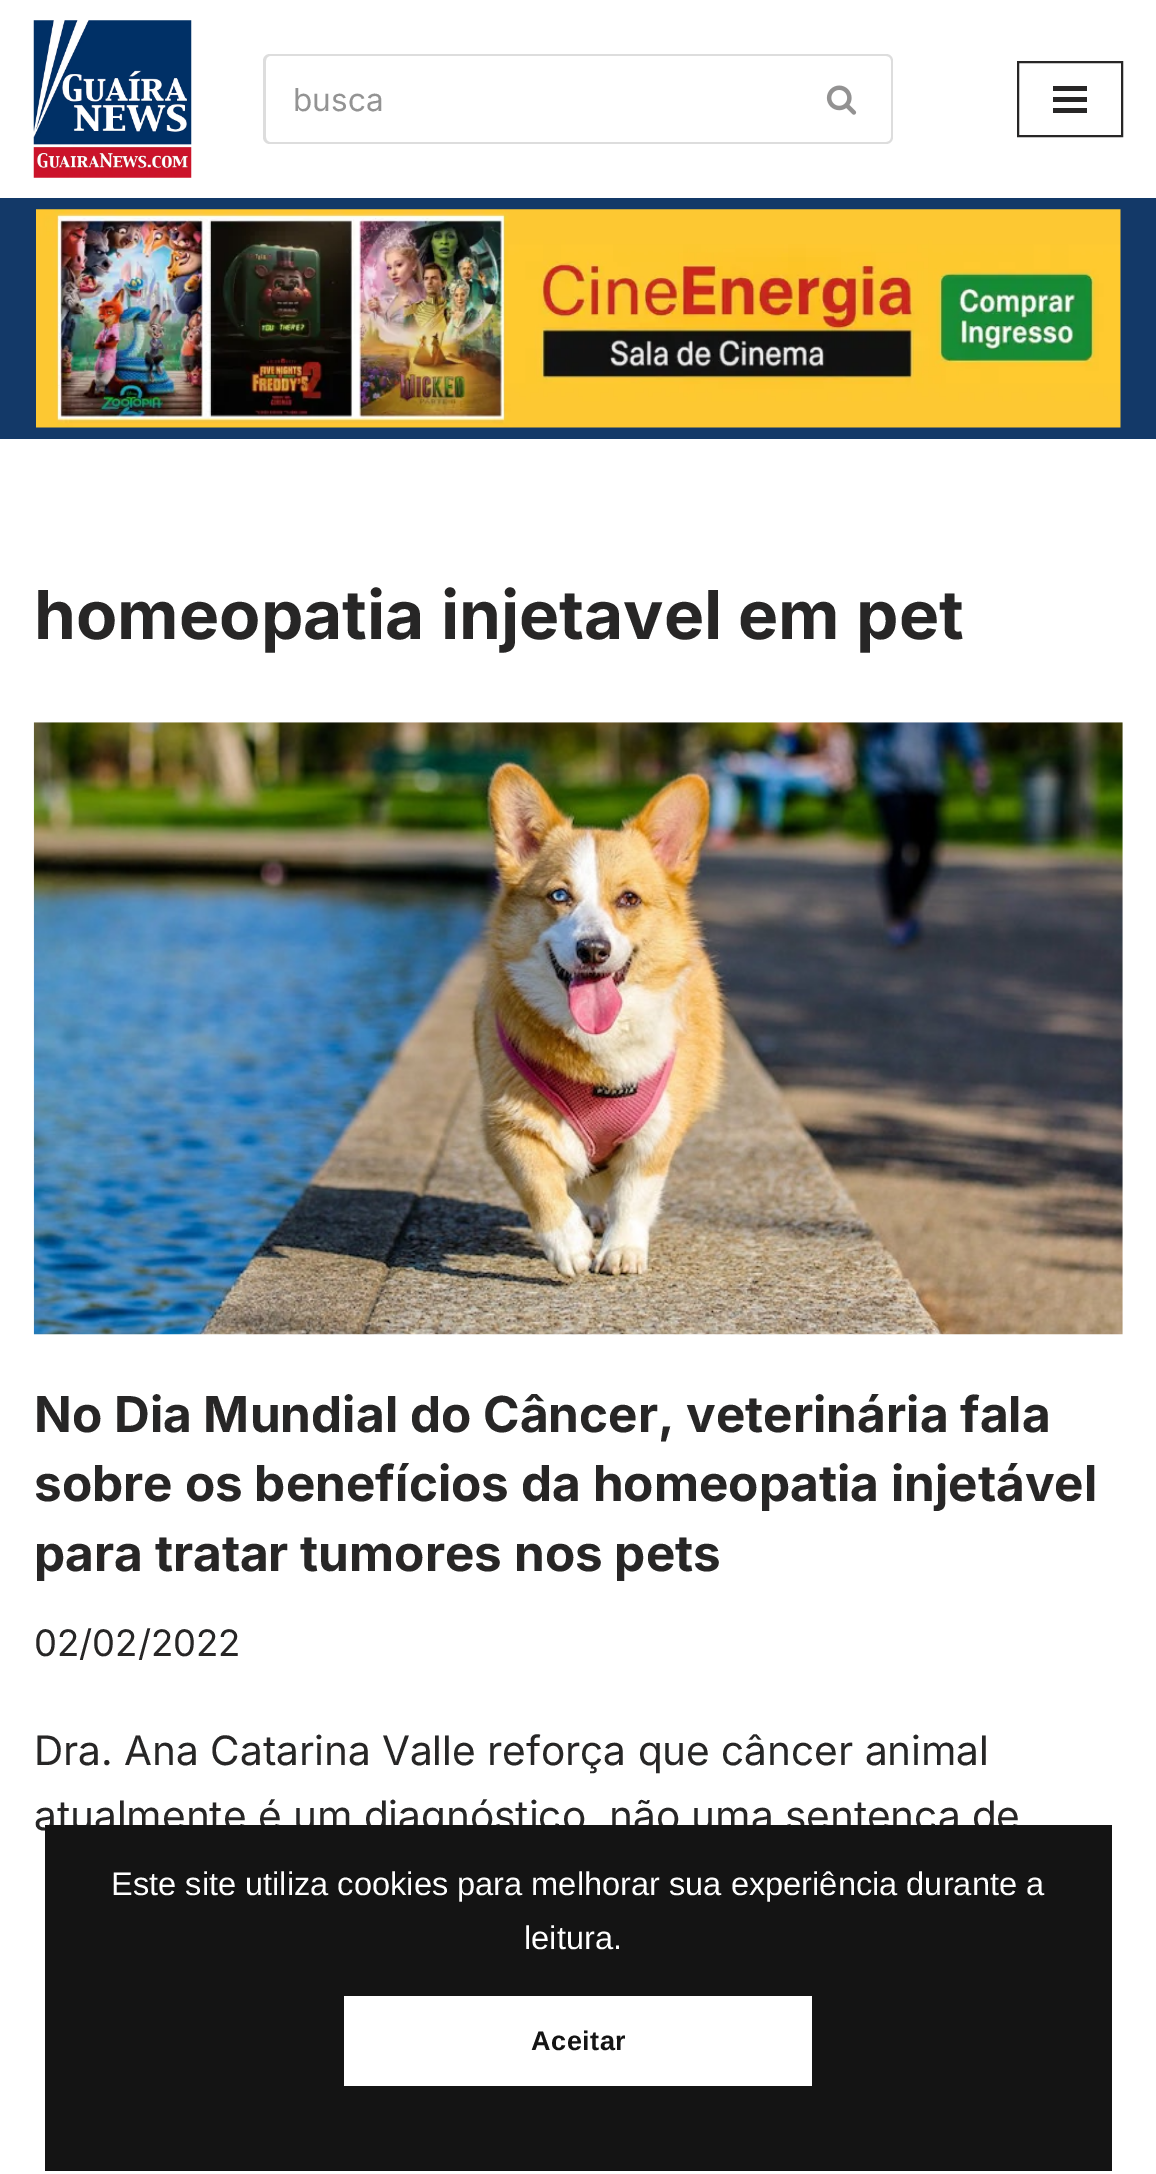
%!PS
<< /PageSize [1156 2174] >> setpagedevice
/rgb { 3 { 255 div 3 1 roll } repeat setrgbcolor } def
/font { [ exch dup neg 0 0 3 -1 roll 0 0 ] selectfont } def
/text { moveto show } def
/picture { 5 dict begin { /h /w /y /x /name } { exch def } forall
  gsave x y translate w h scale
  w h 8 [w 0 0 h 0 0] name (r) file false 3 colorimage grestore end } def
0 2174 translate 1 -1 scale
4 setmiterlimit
255 255 255 rgb
0 0 1156 2174 rectfill
(img_01.rgb) 33 20 159 158 picture
221 221 221 rgb
270 54 moveto 522 0 rlineto 0 90 rlineto -522 0 rlineto -4 0 -7 -3 -7 -7 rcurveto 0 -76 rlineto 0 -4 3 -7 7 -7 rcurveto closepath 270 56 moveto 522 0 rlineto 0 86 rlineto -522 0 rlineto -2 0 -4 -2 -4 -5 rcurveto 0 -76 rlineto 0 -3 2 -5 4 -5 rcurveto closepath eofill
792 54 moveto 94 0 rlineto 4 0 7 3 7 7 rcurveto 0 76 rlineto 0 4 -3 7 -7 7 rcurveto -94 0 rlineto closepath 792 56 moveto 94 0 rlineto 3 0 5 2 5 5 rcurveto 0 76 rlineto 0 3 -2 5 -5 5 rcurveto -94 0 rlineto closepath eofill
(img_02.rgb) 826 85 31 30 picture
39 38 38 rgb
2 setlinewidth
1018 62 104 74 rectstroke
1053 86 34 5 rectfill
1053 97 34 5 rectfill
1053 108 34 5 rectfill
19 57 104 rgb
0 198 1156 241 rectfill
(img_03.rgb) 36 209 1085 219 picture
(img_04.rgb) 33 722 1090 613 picture
/Inter-Regular 31.5 font
147 147 147 rgb
(busca) 293 111 text
/Inter-Bold 67.5 font
39 38 38 rgb
(homeopatia injetavel em pet) 34 639 text
/Inter-Bold 49.5 font
(No Dia Mundial do Câncer, veterinária fala) 34 1432 text
(sobre os benefícios da homeopatia injetável) 34 1501 text
(para tratar tumores nos pets) 34 1571 text
/Inter-Regular 36.5 font
(02/02/2022) 34 1656 text
/Inter-Regular 40.5 font
(Dra. Ana Catarina Valle reforça que câncer animal) 34 1765 text
(atualmente é um diagnóstico, não uma sentença de) 34 1830 text
20 20 20 rgb
45 1825 1067 346 rectfill
/LiberationSans-Regular 32.6 font
255 255 255 rgb
(Este site utiliza cookies para melhorar sua experiência durante a) 111 1895 text
(leitura.) 524 1949 text
344 1996 468 90 rectfill
/LiberationSans-Bold 27 font
20 20 20 rgb
531 2050 moveto 0.5 0 (Aceitar) ashow
showpage
